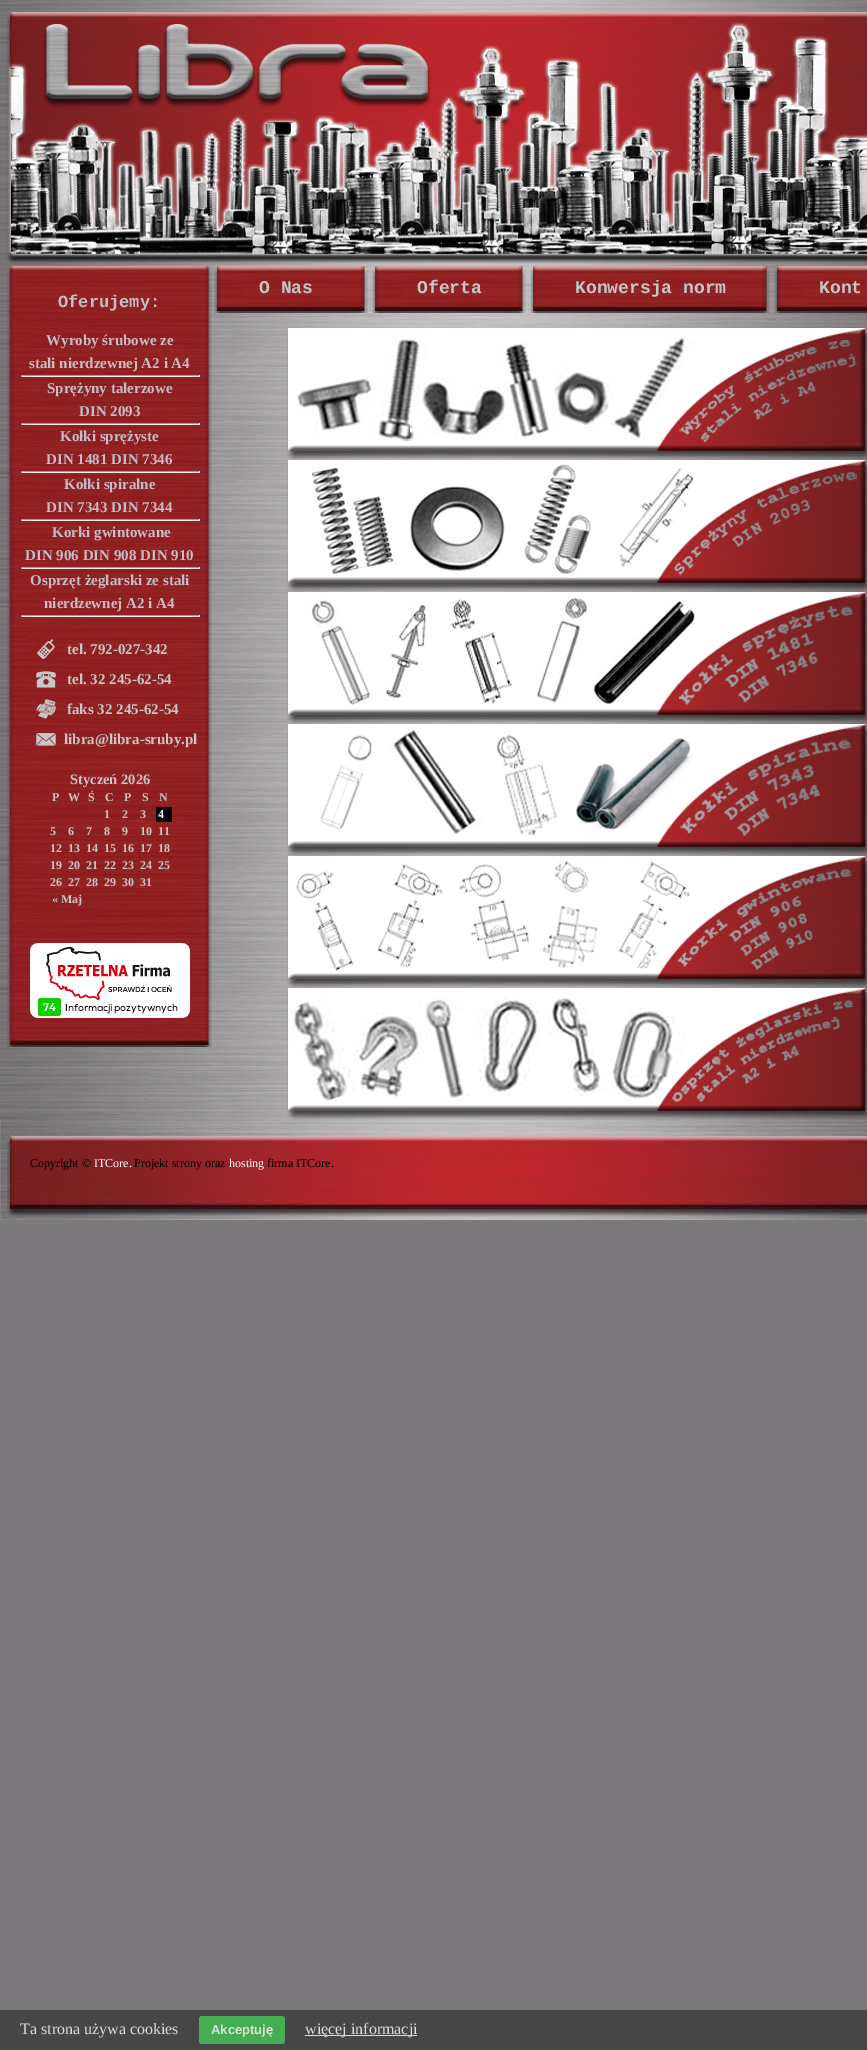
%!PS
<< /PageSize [867 2050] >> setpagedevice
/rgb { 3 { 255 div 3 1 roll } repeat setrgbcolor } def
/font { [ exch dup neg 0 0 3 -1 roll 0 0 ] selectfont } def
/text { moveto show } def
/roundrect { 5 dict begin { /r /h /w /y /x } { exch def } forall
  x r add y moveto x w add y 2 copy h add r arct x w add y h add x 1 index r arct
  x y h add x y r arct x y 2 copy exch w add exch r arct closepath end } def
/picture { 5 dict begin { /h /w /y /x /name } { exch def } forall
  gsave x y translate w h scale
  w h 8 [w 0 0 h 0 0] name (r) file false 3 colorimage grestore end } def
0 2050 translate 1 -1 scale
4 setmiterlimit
123 121 123 rgb
0 0 867 2050 rectfill
(img_01.rgb) 0 0 867 266 picture
(img_02.rgb) 0 266 867 855 picture
(img_03.rgb) 214 266 30 47 picture
(img_04.rgb) 244 266 124 47 picture
(img_05.rgb) 371 266 31 47 picture
(img_06.rgb) 402 266 124 47 picture
(img_07.rgb) 529 266 31 47 picture
(img_08.rgb) 560 266 210 47 picture
(img_09.rgb) 774 266 30 47 picture
(img_10.rgb) 804 266 63 47 picture
(img_11.rgb) 7 266 205 27 picture
(img_12.rgb) 7 293 205 725 picture
159 159 159 rgb
21 375 179 1 rectfill
238 238 238 rgb
199 375 1 2 rectfill
21 376 179 1 rectfill
159 159 159 rgb
21 375 1 2 rectfill
21 423 179 1 rectfill
238 238 238 rgb
199 423 1 2 rectfill
21 424 179 1 rectfill
159 159 159 rgb
21 423 1 2 rectfill
21 471 179 1 rectfill
238 238 238 rgb
199 471 1 2 rectfill
21 472 179 1 rectfill
159 159 159 rgb
21 471 1 2 rectfill
21 519 179 1 rectfill
238 238 238 rgb
199 519 1 2 rectfill
21 520 179 1 rectfill
159 159 159 rgb
21 519 1 2 rectfill
21 567 179 1 rectfill
238 238 238 rgb
199 567 1 2 rectfill
21 568 179 1 rectfill
159 159 159 rgb
21 567 1 2 rectfill
21 615 179 1 rectfill
238 238 238 rgb
199 615 1 2 rectfill
21 616 179 1 rectfill
159 159 159 rgb
21 615 1 2 rectfill
(img_13.rgb) 36 639 20 20 picture
(img_14.rgb) 36 671 20 17 picture
(img_15.rgb) 36 699 20 20 picture
(img_16.rgb) 36 733 20 13 picture
0 0 0 rgb
156 807 16 15 rectfill
(img_17.rgb) 30 943 160 75 picture
(img_18.rgb) 7 1018 205 29 picture
(img_19.rgb) 287 328 580 132 picture
(img_20.rgb) 287 460 580 132 picture
(img_21.rgb) 287 592 580 132 picture
(img_22.rgb) 287 724 580 132 picture
(img_23.rgb) 287 856 580 132 picture
(img_24.rgb) 287 988 580 132 picture
(img_25.rgb) 0 1121 867 99 picture
70 70 70 rgb
0 2010 867 40 rectfill
69 174 82 rgb
199 2016 86 28 3 roundrect fill
221 221 221 rgb
305 2035 112 1 rectfill
/LiberationMono-Bold 18 font
198 199 198 rgb
(O Nas) 259 293 text
(Oferta) 417 293 text
(Konwersja norm) 575 293 text
(Kont) 819 293 text
/LiberationMono-Bold 17 font
198 190 198 rgb
(Oferujemy:) 58 307 text
/LiberationSerif-Bold 15 font
(Wyroby śrubowe ze) 46 345 text
(stali nierdzewnej A2 i A4) 29 368 text
(Sprężyny talerzowe) 47 393 text
(DIN 2093) 79 416 text
(Kołki sprężyste) 60 441 text
(DIN 1481 DIN 7346) 46 464 text
(Kołki spiralne) 64 489 text
(DIN 7343 DIN 7344) 46 512 text
(Korki gwintowane) 52 537 text
(DIN 906 DIN 908 DIN 910) 25 560 text
(Osprzęt żeglarski ze stali) 30 585 text
(nierdzewnej A2 i A4) 44 608 text
198 199 198 rgb
(tel. 792-027-342) 67 654 text
(tel. 32 245-62-54) 67 684 text
(faks 32 245-62-54) 67 714 text
(libra@libra-sruby.pl) 64 744 text
/LiberationSerif-Bold 14.5 font
(Styczeń 2026) 70 784 text
/LiberationSerif-Bold 12 font
(P) 52 801 text
(W) 68 801 text
(Ś) 88 801 text
(C) 105 801 text
(P) 124 801 text
(S) 142 801 text
(N) 159 801 text
(1) 104 818 text
(2) 122 818 text
(3) 140 818 text
255 255 255 rgb
(4) 158 818 text
198 199 198 rgb
(5) 50 835 text
(6) 68 835 text
(7) 86 835 text
(8) 104 835 text
(9) 122 835 text
(10) 140 835 text
(11) 158 835 text
(12) 50 852 text
(13) 68 852 text
(14) 86 852 text
(15) 104 852 text
(16) 122 852 text
(17) 140 852 text
(18) 158 852 text
(19) 50 869 text
(20) 68 869 text
(21) 86 869 text
(22) 104 869 text
(23) 122 869 text
(24) 140 869 text
(25) 158 869 text
(26) 50 886 text
(27) 68 886 text
(28) 86 886 text
(29) 104 886 text
(30) 122 886 text
(31) 140 886 text
(« Maj) 52 903 text
/LiberationSerif-Regular 12 font
0 0 0 rgb
(Copyright ©) 30 1167 text
255 255 255 rgb
(ITCore.) 94 1167 text
0 0 0 rgb
(Projekt strony oraz) 134 1167 text
255 255 255 rgb
(hosting) 229 1167 text
0 0 0 rgb
(firma ITCore.) 267 1167 text
/LiberationSerif-Regular 16 font
221 221 221 rgb
(Ta strona używa cookies) 20 2034 text
/LiberationSans-Bold 13 font
(Akceptuję) 211 2034 text
/LiberationSerif-Regular 16 font
(więcej informacji) 305 2034 text
showpage
